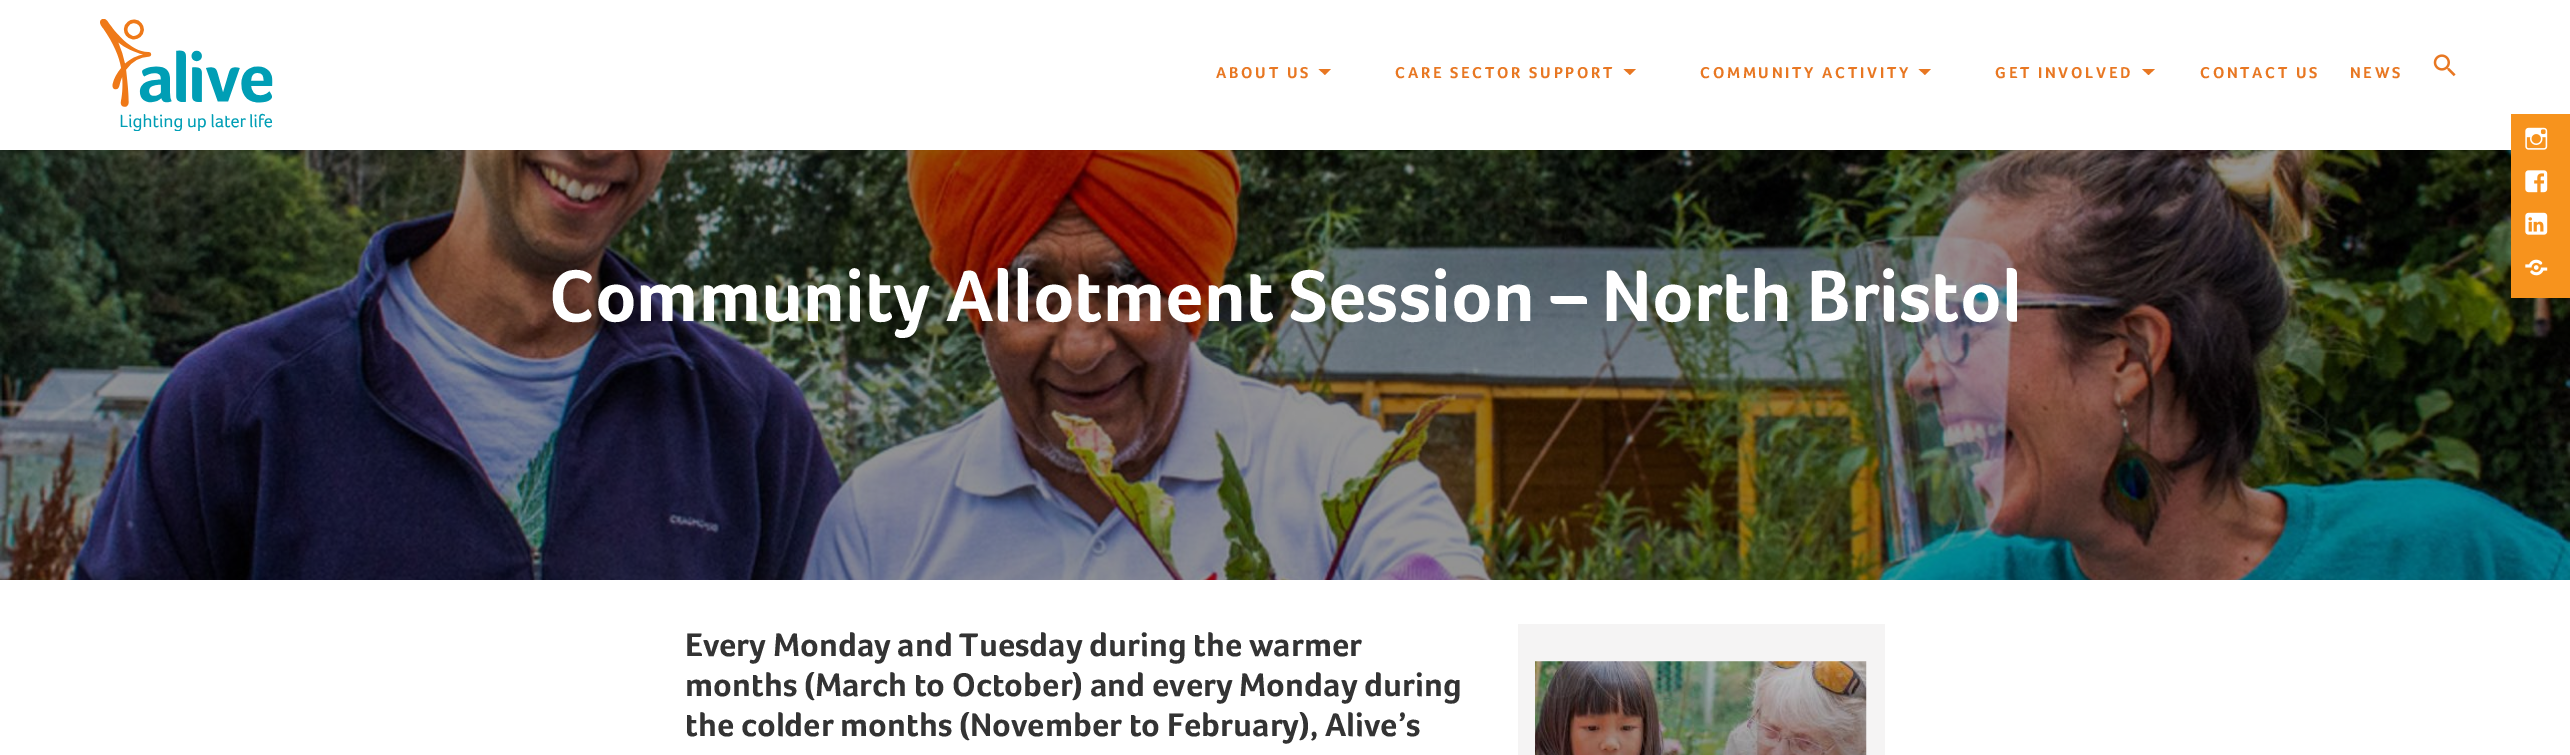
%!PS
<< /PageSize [2570 755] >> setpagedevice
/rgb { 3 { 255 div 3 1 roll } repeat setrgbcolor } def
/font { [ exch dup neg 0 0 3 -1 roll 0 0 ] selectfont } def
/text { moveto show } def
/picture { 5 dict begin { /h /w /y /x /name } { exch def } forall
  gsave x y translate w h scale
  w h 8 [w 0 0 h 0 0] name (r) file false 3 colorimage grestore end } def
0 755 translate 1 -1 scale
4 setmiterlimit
255 255 255 rgb
0 0 2570 755 rectfill
(img_01.rgb) 100 19 173 112 picture
232 119 34 rgb
1318.5 69 moveto 12.5 0 rlineto -6 6 rlineto closepath fill
1623.5 69 moveto 12.5 0 rlineto -6 6 rlineto closepath fill
1918.5 69 moveto 12.5 0 rlineto -6 6 rlineto closepath fill
2142 69 moveto 13 0 rlineto -6.5 6 rlineto closepath fill
(img_02.rgb) 2433 54 23 23 picture
(img_07.rgb) 0 150 2570 430 picture
247 147 29 rgb
2511 114 59 184 rectfill
(img_03.rgb) 2525 127 23 23 picture
(img_04.rgb) 2525 170 23 23 picture
(img_05.rgb) 2525 212 23 23 picture
(img_06.rgb) 2525 259 23 17 picture
245 244 244 rgb
1518 624 367 131 rectfill
(img_08.rgb) 1535 661 332 94 picture
/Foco-Bold 16.25 font
232 119 34 rgb
1216 78 moveto 2.75 0 (ABOUT US) ashow
1395 78 moveto 2.75 0 (CARE SECTOR SUPPORT) ashow
1700 78 moveto 2.75 0 (COMMUNITY ACTIVITY) ashow
1995 78 moveto 2.75 0 (GET INVOLVED) ashow
2200 78 moveto 2.75 0 (CONTACT US) ashow
2350 78 moveto 2.75 0 (NEWS) ashow
/Foco-Bold 75 font
255 255 255 rgb
(Community Allotment Session – North Bristol) 549 321 text
/Foco-Bold 33.75 font
51 51 51 rgb
(Every Monday and Tuesday during the warmer) 685 656 text
(months \(March to October\) and every Monday during) 685 696 text
(the colder months \(November to February\), Alive’s) 685 736 text
showpage
